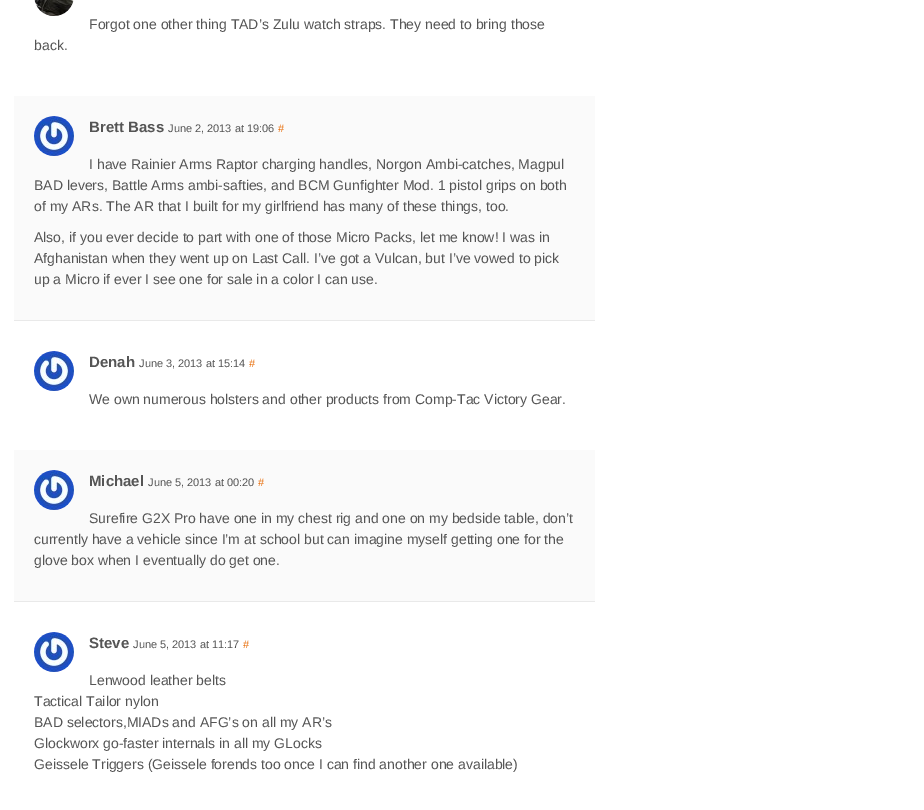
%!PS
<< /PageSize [924 810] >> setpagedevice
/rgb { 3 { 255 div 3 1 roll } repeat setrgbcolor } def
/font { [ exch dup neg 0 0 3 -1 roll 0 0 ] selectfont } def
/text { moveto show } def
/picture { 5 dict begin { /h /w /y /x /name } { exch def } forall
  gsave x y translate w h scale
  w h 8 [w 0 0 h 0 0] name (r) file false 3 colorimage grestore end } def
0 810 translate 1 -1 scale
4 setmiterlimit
255 255 255 rgb
0 0 924 810 rectfill
(img_01.rgb) 34 0 40 16 picture
250 250 250 rgb
14 96 581 224 rectfill
233 233 233 rgb
14 320 581 1 rectfill
(img_02.rgb) 34 116 40 40 picture
(img_03.rgb) 34 351 40 40 picture
250 250 250 rgb
14 450 581 151 rectfill
233 233 233 rgb
14 601 581 1 rectfill
(img_04.rgb) 34 470 40 40 picture
(img_05.rgb) 34 632 40 40 picture
/LiberationSans-Regular 14 font
85 85 85 rgb
(Forgot one other thing TAD’s Zulu watch straps. They need to bring those) 89 29 text
(back.) 34 50 text
/LiberationSans-Bold 15 font
(Brett Bass) 89 132 text
/LiberationSans-Regular 11 font
(June 2, 2013 at 19:06) 168 132 text
232 104 0 rgb
(#) 278 132 text
/LiberationSans-Regular 14 font
85 85 85 rgb
(I have Rainier Arms Raptor charging handles, Norgon Ambi-catches, Magpul) 89 169 text
(BAD levers, Battle Arms ambi-safties, and BCM Gunfighter Mod. 1 pistol grips on both) 34 190 text
(of my ARs. The AR that I built for my girlfriend has many of these things, too.) 34 211 text
(Also, if you ever decide to part with one of those Micro Packs, let me know! I was in) 34 242 text
(Afghanistan when they went up on Last Call. I’ve got a Vulcan, but I’ve vowed to pick) 34 263 text
(up a Micro if ever I see one for sale in a color I can use.) 34 284 text
/LiberationSans-Bold 15 font
(Denah) 89 367 text
/LiberationSans-Regular 11 font
(June 3, 2013 at 15:14) 139 367 text
232 104 0 rgb
(#) 249 367 text
/LiberationSans-Regular 14 font
85 85 85 rgb
(We own numerous holsters and other products from Comp-Tac Victory Gear.) 89 404 text
/LiberationSans-Bold 15 font
(Michael) 89 486 text
/LiberationSans-Regular 11 font
(June 5, 2013 at 00:20) 148 486 text
232 104 0 rgb
(#) 258 486 text
/LiberationSans-Regular 14 font
85 85 85 rgb
(Surefire G2X Pro have one in my chest rig and one on my bedside table, don’t) 89 523 text
(currently have a vehicle since I’m at school but can imagine myself getting one for the) 34 544 text
(glove box when I eventually do get one.) 34 565 text
/LiberationSans-Bold 15 font
(Steve) 89 648 text
/LiberationSans-Regular 11 font
(June 5, 2013 at 11:17) 133 648 text
232 104 0 rgb
(#) 243 648 text
/LiberationSans-Regular 14 font
85 85 85 rgb
(Lenwood leather belts) 89 685 text
(Tactical Tailor nylon) 34 706 text
(BAD selectors,MIADs and AFG’s on all my AR’s) 34 727 text
(Glockworx go-faster internals in all my GLocks) 34 748 text
(Geissele Triggers \(Geissele forends too once I can find another one available\)) 34 769 text
showpage
